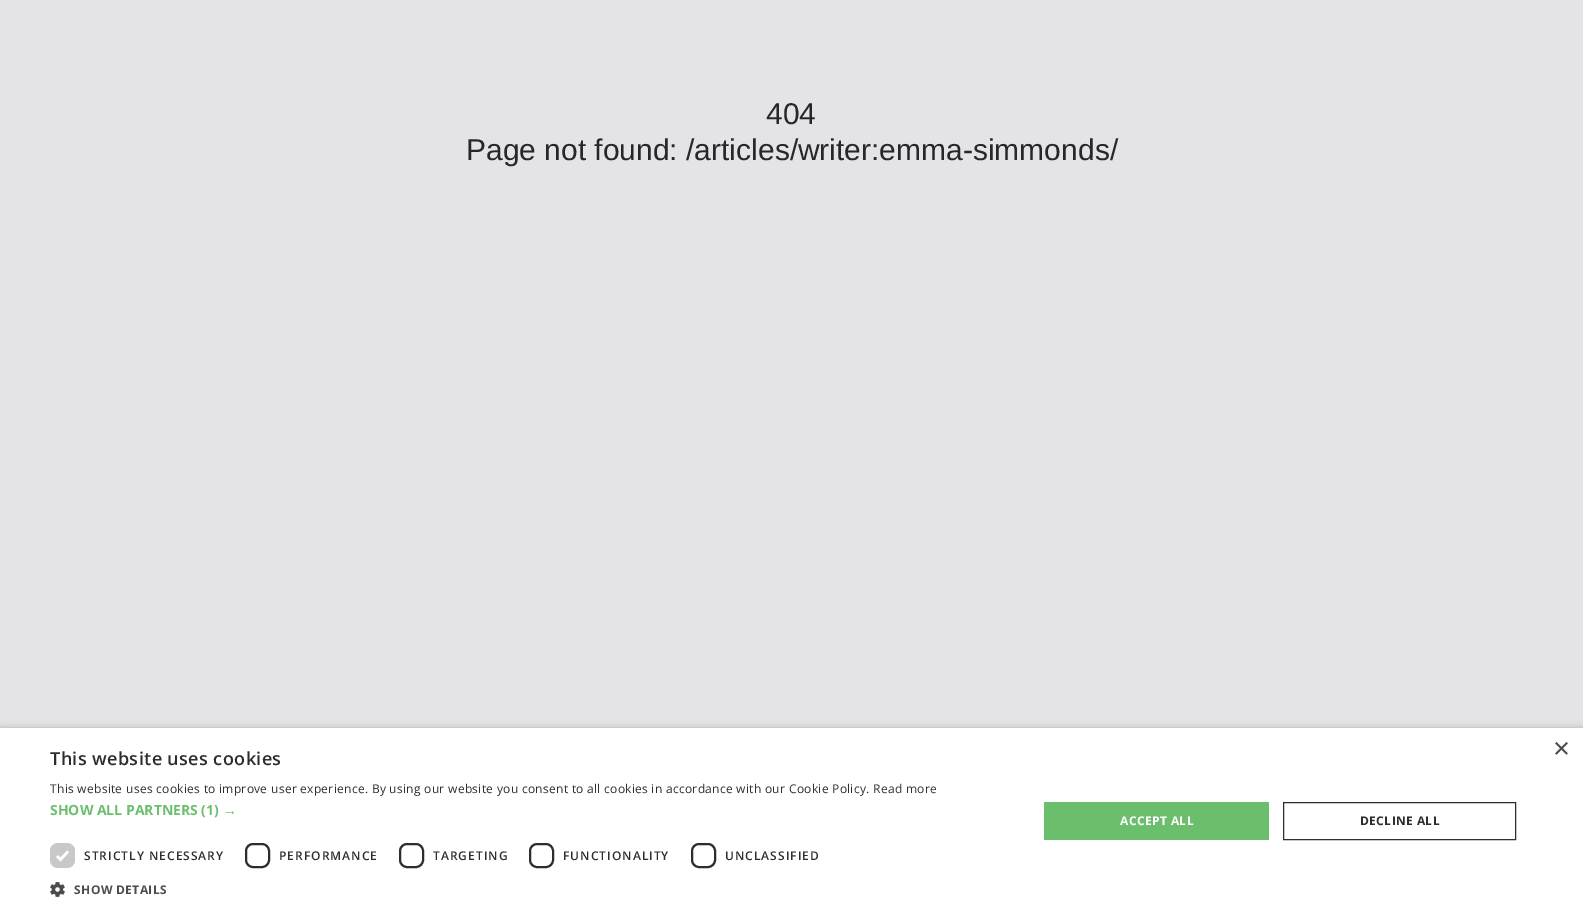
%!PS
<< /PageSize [1583 914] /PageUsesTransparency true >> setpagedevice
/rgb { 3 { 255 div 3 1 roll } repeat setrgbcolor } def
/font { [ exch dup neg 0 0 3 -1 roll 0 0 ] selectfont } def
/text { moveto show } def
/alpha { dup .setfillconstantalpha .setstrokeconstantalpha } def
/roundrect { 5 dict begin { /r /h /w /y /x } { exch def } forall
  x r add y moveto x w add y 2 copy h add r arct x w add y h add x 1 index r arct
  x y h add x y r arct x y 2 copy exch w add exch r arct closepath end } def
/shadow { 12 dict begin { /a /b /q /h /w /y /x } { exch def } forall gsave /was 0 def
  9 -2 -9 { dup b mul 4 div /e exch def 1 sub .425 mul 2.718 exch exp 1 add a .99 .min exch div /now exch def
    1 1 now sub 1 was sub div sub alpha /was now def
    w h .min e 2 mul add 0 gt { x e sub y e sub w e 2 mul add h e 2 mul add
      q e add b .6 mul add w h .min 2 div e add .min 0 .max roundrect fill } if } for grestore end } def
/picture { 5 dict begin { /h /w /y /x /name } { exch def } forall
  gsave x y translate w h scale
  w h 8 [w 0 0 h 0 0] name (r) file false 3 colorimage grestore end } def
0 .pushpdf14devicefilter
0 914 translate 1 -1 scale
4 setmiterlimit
228 228 231 rgb
0 0 1583 914 rectfill
0 0 0 rgb
1 730 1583 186 0 4 0.35 shadow
255 255 255 rgb
0 728 1583 186 rectfill
200 200 200 rgb
50 843 25 25 8 roundrect fill
255 255 255 rgb
2.6 setlinewidth
57 856 moveto 3.5 3.5 rlineto 7.5 -8 rlineto stroke
45 45 45 rgb
2 setlinewidth
246 844 23 23 7 roundrect stroke
400 844 23 23 7 roundrect stroke
530 844 23 23 7 roundrect stroke
692 844 23 23 7 roundrect stroke
(img_01.rgb) 50 882 15 15 picture
107 190 107 rgb
1044 802 225 38 rectfill
45 45 45 rgb
1 setlinewidth
1283.5 802.5 232 37 rectstroke
/LiberationSans-Regular 30 font
39 39 42 rgb
(404) 766 124 text
(Page not found: /articles/writer:emma-simmonds/) 466 160 text
/LiberationSans-Regular 29 font
77 77 77 rgb
(×) 1553 758 text
/OpenSans-SemiBold 18 font
45 45 45 rgb
50 765 moveto 0.4 0 (This website uses cookies) ashow
/OpenSans-Regular 12 font
50 793 moveto 0.3 0 (This website uses cookies to improve user experience. By using our website you consent to all cookies in accordance with our Cookie Policy.) ashow
51 51 51 rgb
873 793 moveto 0.3 0 (Read more) ashow
/OpenSans-Bold 14 font
107 190 107 rgb
(SHOW ALL PARTNERS \(1\)) 50 815 text
/LiberationSans-Bold 14 font
(→) 223 815 text
/OpenSans-SemiBold 12 font
45 45 45 rgb
84 860 moveto 1 0 (STRICTLY NECESSARY) ashow
279 860 moveto 1 0 (PERFORMANCE) ashow
433 860 moveto 1 0 (TARGETING) ashow
563 860 moveto 1 0 (FUNCTIONALITY) ashow
725 860 moveto 1 0 (UNCLASSIFIED) ashow
/OpenSans-Bold 12 font
77 77 77 rgb
74 894 moveto 0.4 0 (SHOW DETAILS) ashow
255 255 255 rgb
1120 825 moveto 0.4 0 (ACCEPT ALL) ashow
45 45 45 rgb
1360 825 moveto 0.4 0 (DECLINE ALL) ashow
.poppdf14devicefilter showpage
